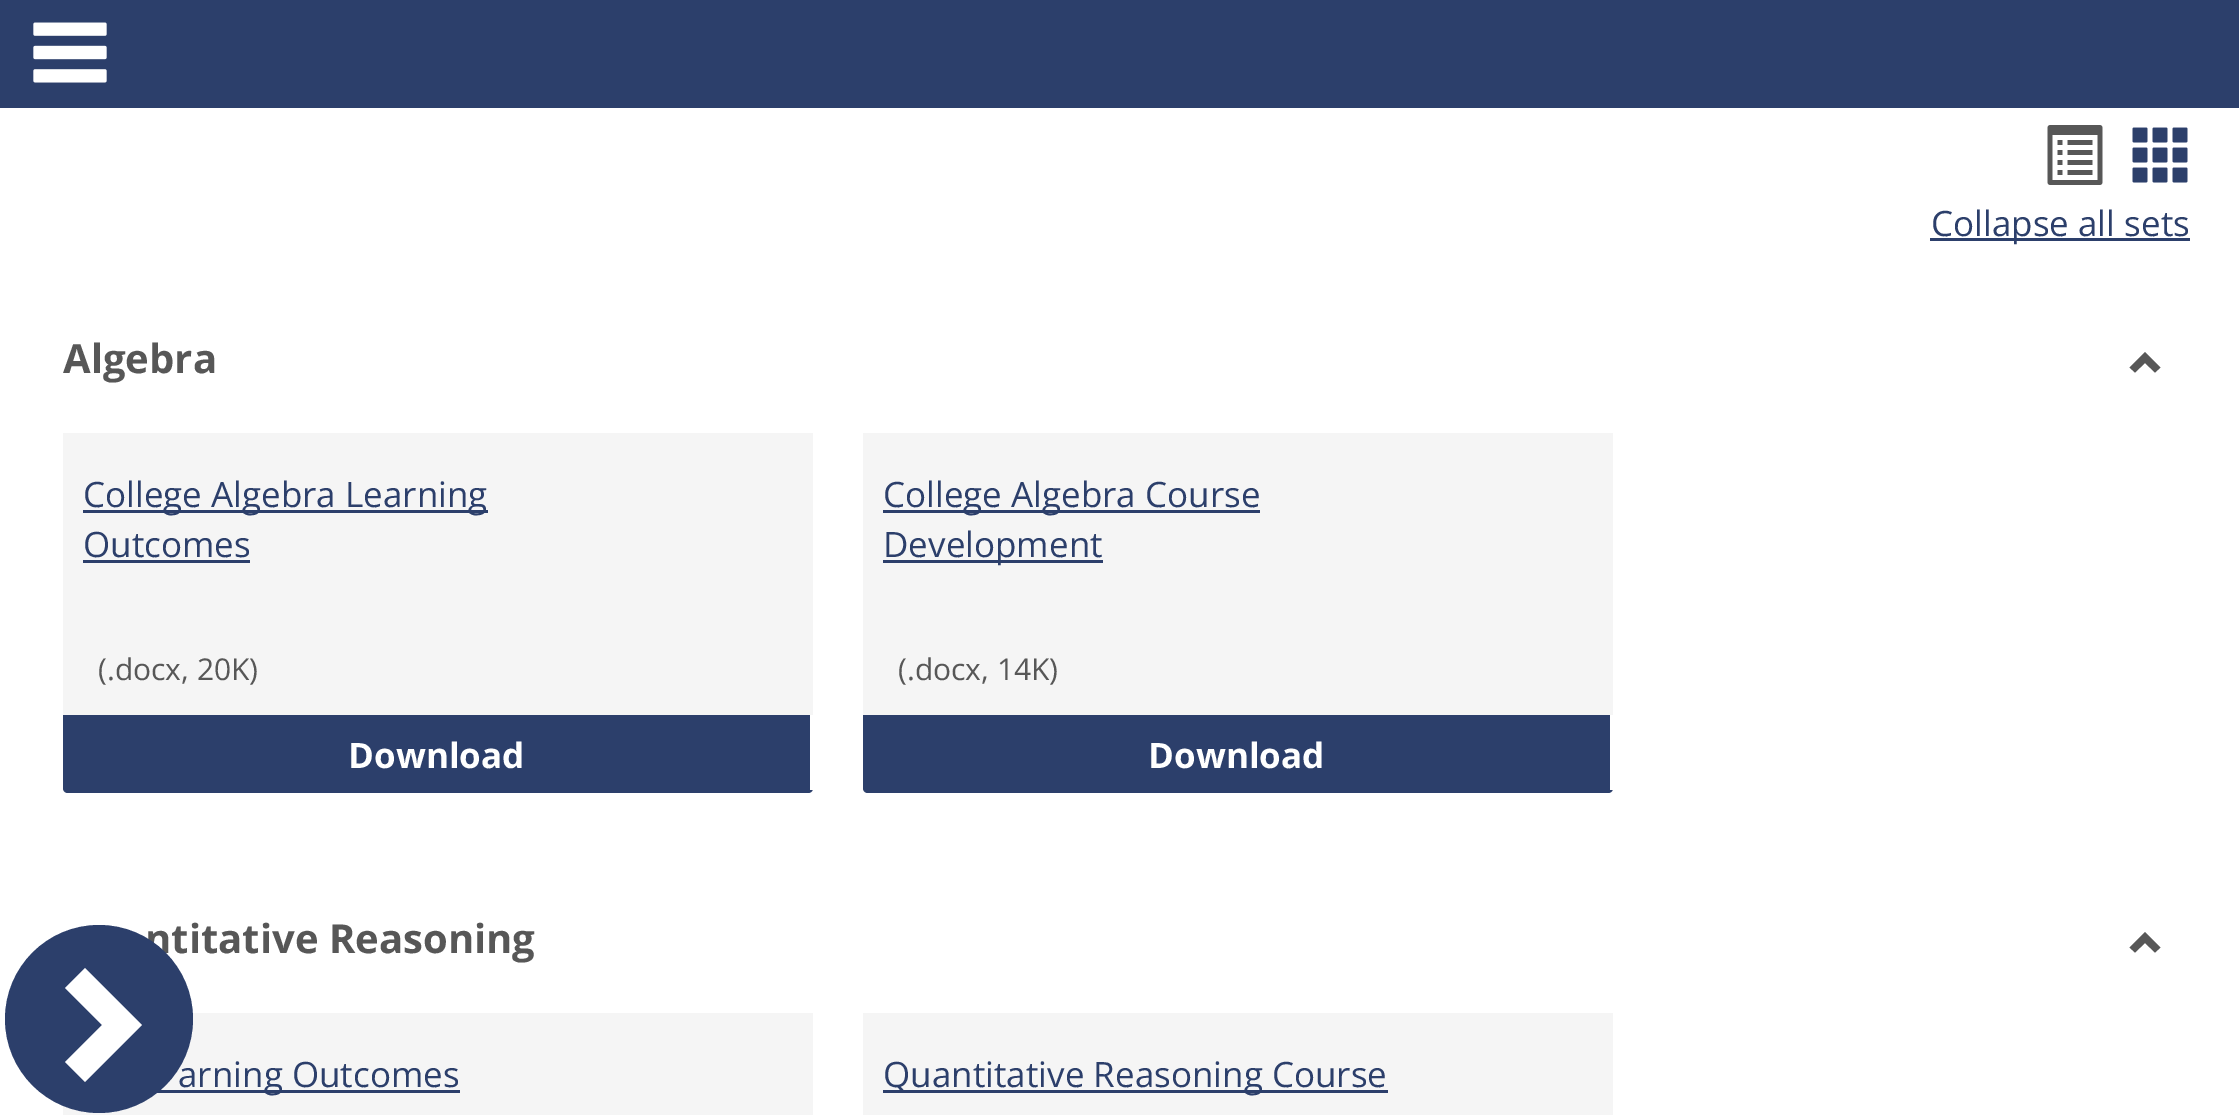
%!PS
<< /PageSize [2239 1115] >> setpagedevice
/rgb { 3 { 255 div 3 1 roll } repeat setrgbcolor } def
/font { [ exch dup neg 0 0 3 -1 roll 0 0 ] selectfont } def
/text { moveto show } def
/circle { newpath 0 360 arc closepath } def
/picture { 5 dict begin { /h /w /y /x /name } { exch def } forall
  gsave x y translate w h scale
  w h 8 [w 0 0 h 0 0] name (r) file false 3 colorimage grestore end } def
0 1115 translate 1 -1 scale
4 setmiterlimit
255 255 255 rgb
0 0 2239 1115 rectfill
44 63 107 rgb
0 0 2239 108 rectfill
(img_01.rgb) 33 22 74 61 picture
(img_02.rgb) 2047 125 56 60 picture
(img_03.rgb) 2132 127 56 56 picture
1930 238 260 3 rectfill
87 87 87 rgb
2155 372.5 moveto -10 -9.5 rlineto -10 9.5 rlineto -5.5 -5 rlineto 15.5 -15.5 rlineto 15.5 15.5 rlineto closepath fill
245 245 245 rgb
63 433 moveto 750 0 rlineto 0 355 rlineto 0 3 -2 5 -5 5 rcurveto -740 0 rlineto -3 0 -5 -2 -5 -5 rcurveto closepath fill
44 63 107 rgb
83 510 405 3 rectfill
83 560 167 3 rectfill
63 715 moveto 750 0 rlineto 0 73 rlineto 0 3 -2 5 -5 5 rcurveto -740 0 rlineto -3 0 -5 -2 -5 -5 rcurveto closepath fill
255 255 255 rgb
810 715 3 75 rectfill
245 245 245 rgb
863 433 moveto 750 0 rlineto 0 355 rlineto 0 3 -2 5 -5 5 rcurveto -740 0 rlineto -3 0 -5 -2 -5 -5 rcurveto closepath fill
44 63 107 rgb
883 510 377 3 rectfill
883 560 220 3 rectfill
863 715 moveto 750 0 rlineto 0 73 rlineto 0 3 -2 5 -5 5 rcurveto -740 0 rlineto -3 0 -5 -2 -5 -5 rcurveto closepath fill
255 255 255 rgb
1610 715 3 75 rectfill
87 87 87 rgb
2155 952.5 moveto -10 -9.5 rlineto -10 9.5 rlineto -5.5 -5 rlineto 15.5 -15.5 rlineto 15.5 15.5 rlineto closepath fill
245 245 245 rgb
63 1013 750 102 rectfill
44 63 107 rgb
157 1090 303 3 rectfill
245 245 245 rgb
863 1013 750 102 rectfill
44 63 107 rgb
883 1090 505 3 rectfill
/OpenSans-Regular 35 font
(Collapse all sets) 1931 236 text
/OpenSans-Bold 40 font
87 87 87 rgb
(Algebra) 63 373 text
/OpenSans-Regular 35 font
44 63 107 rgb
(College Algebra Learning) 83 507 text
(Outcomes) 83 557 text
/OpenSans-Regular 30 font
87 87 87 rgb
(\(.docx, 20K\)) 98 680 text
/OpenSans-Bold 35 font
255 255 255 rgb
(Download) 348 768 text
/OpenSans-Regular 35 font
44 63 107 rgb
(College Algebra Course) 883 507 text
(Development) 883 557 text
/OpenSans-Regular 30 font
87 87 87 rgb
(\(.docx, 14K\)) 898 680 text
/OpenSans-Bold 35 font
255 255 255 rgb
(Download) 1148 768 text
/OpenSans-Bold 40 font
87 87 87 rgb
(ntitative Reasoning) 145 953 text
/OpenSans-Regular 35 font
44 63 107 rgb
(arning Outcomes) 178 1087 text
(Quantitative Reasoning Course) 883 1087 text
99 1019 94 circle fill
255 255 255 rgb
85 1082 moveto -20 -20 rlineto 37 -37 rlineto -37 -37 rlineto 20 -20 rlineto 57 57 rlineto closepath fill
showpage
